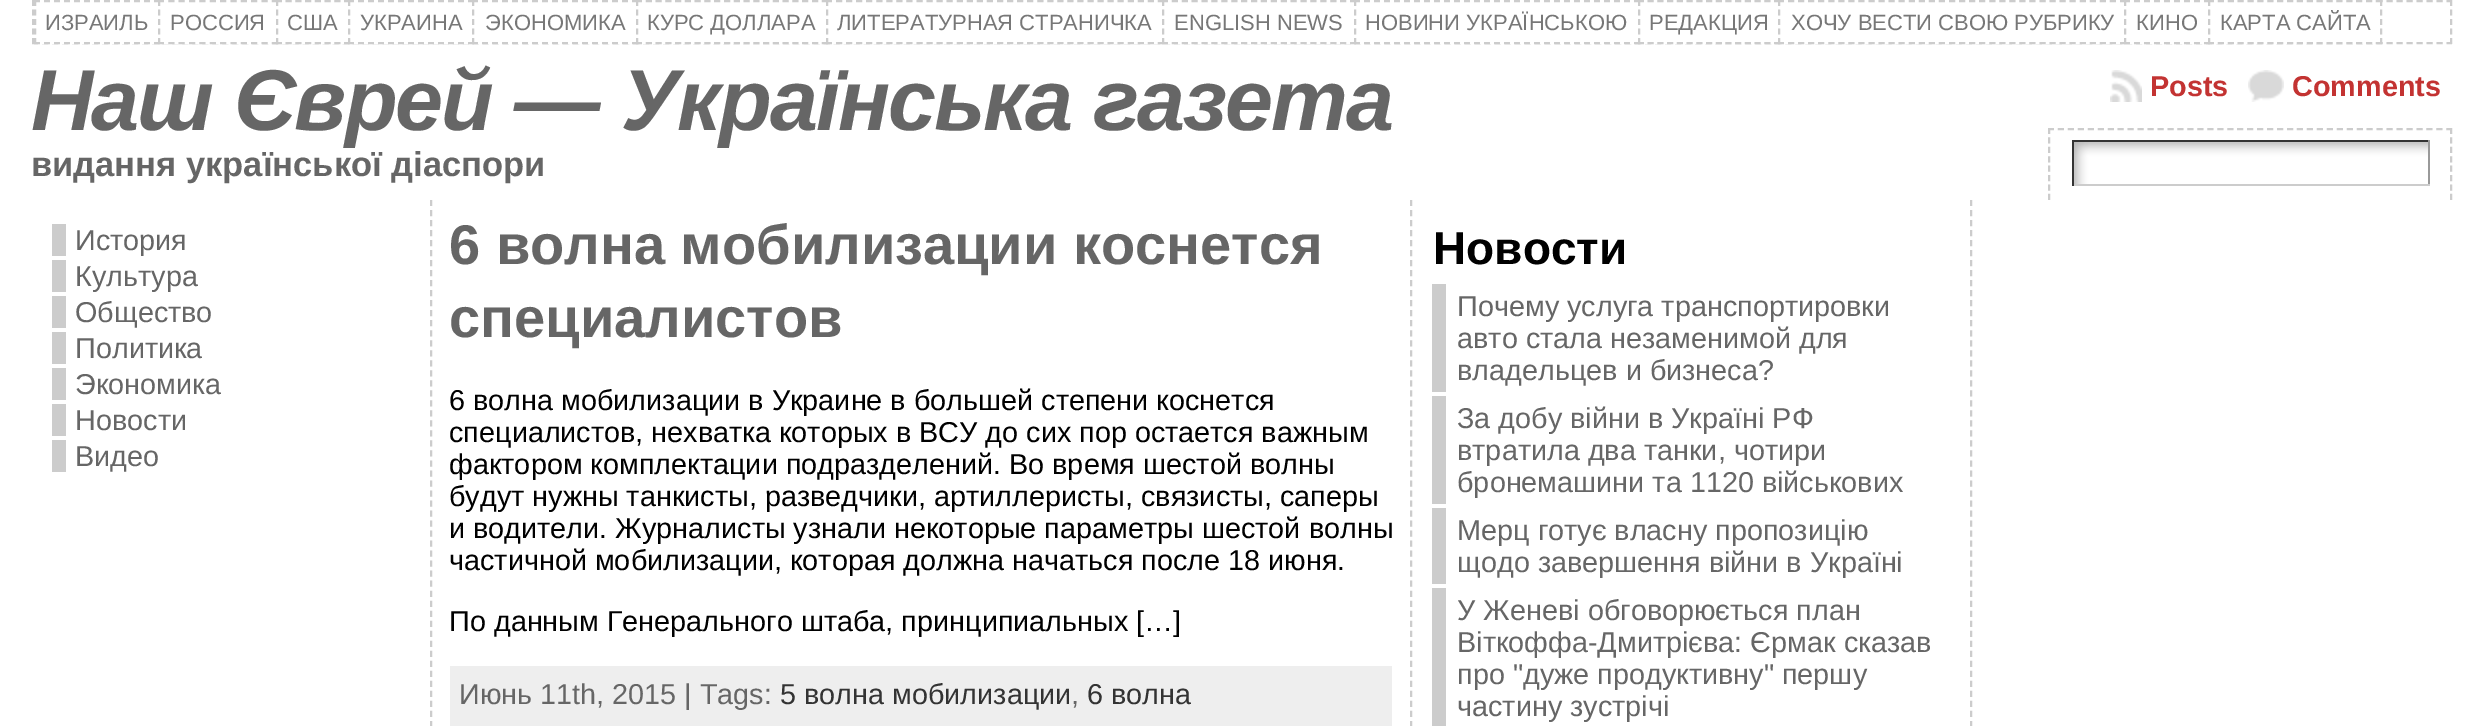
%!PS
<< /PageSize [2481 726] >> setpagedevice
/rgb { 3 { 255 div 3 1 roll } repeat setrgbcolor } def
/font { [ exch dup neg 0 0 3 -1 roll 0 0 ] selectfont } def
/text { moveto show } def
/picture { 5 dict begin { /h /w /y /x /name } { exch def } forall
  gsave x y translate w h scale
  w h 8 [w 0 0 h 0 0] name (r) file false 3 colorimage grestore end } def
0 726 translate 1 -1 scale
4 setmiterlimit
255 255 255 rgb
0 0 2481 726 rectfill
204 204 204 rgb
2 setlinewidth
[6 4.02] 0 setdash
32 1 moveto 2420 0 rlineto stroke
[6 3.5] 0 setdash
2451 0 moveto 0 44 rlineto stroke
[6 4.02] 0 setdash
32 43 moveto 2420 0 rlineto stroke
[6 3.5] 0 setdash
33 0 moveto 0 44 rlineto stroke
255 255 255 rgb
34 0 124 44 rectfill
204 204 204 rgb
[6 4] 0 setdash
34 1 moveto 126 0 rlineto stroke
34 43 moveto 126 0 rlineto stroke
[6 3.5] 0 setdash
35 0 moveto 0 44 rlineto stroke
255 255 255 rgb
158 0 118 44 rectfill
204 204 204 rgb
[6 4.36] 0 setdash
158 1 moveto 120 0 rlineto stroke
158 43 moveto 120 0 rlineto stroke
[6 3.5] 0 setdash
159 0 moveto 0 44 rlineto stroke
255 255 255 rgb
276 0 72 44 rectfill
204 204 204 rgb
[6 3.72] 0 setdash
276 1 moveto 74 0 rlineto stroke
276 43 moveto 74 0 rlineto stroke
[6 3.5] 0 setdash
277 0 moveto 0 44 rlineto stroke
255 255 255 rgb
348 0 121 44 rectfill
204 204 204 rgb
[6 4] 0 setdash
348 1 moveto 126 0 rlineto stroke
348 43 moveto 126 0 rlineto stroke
[6 3.5] 0 setdash
349 0 moveto 0 44 rlineto stroke
255 255 255 rgb
472 0 164 44 rectfill
204 204 204 rgb
[6 4] 0 setdash
472 1 moveto 166 0 rlineto stroke
472 43 moveto 166 0 rlineto stroke
[6 3.5] 0 setdash
473 0 moveto 0 44 rlineto stroke
255 255 255 rgb
636 0 190 44 rectfill
204 204 204 rgb
[6 3.78] 0 setdash
636 1 moveto 192 0 rlineto stroke
636 43 moveto 192 0 rlineto stroke
[6 3.5] 0 setdash
637 0 moveto 0 44 rlineto stroke
255 255 255 rgb
826 0 335 44 rectfill
204 204 204 rgb
[6 4.06] 0 setdash
826 1 moveto 338 0 rlineto stroke
826 43 moveto 338 0 rlineto stroke
[6 3.5] 0 setdash
827 0 moveto 0 44 rlineto stroke
255 255 255 rgb
1162 0 189 44 rectfill
204 204 204 rgb
[6 3.9] 0 setdash
1162 1 moveto 194 0 rlineto stroke
1162 43 moveto 194 0 rlineto stroke
[6 3.5] 0 setdash
1163 0 moveto 0 44 rlineto stroke
255 255 255 rgb
1354 0 284 44 rectfill
204 204 204 rgb
[6 4] 0 setdash
1354 1 moveto 286 0 rlineto stroke
1354 43 moveto 286 0 rlineto stroke
[6 3.5] 0 setdash
1355 0 moveto 0 44 rlineto stroke
255 255 255 rgb
1638 0 140 44 rectfill
204 204 204 rgb
[6 3.72] 0 setdash
1638 1 moveto 142 0 rlineto stroke
1638 43 moveto 142 0 rlineto stroke
[6 3.5] 0 setdash
1639 0 moveto 0 44 rlineto stroke
255 255 255 rgb
1778 0 345 44 rectfill
204 204 204 rgb
[6 4.06] 0 setdash
1778 1 moveto 348 0 rlineto stroke
1778 43 moveto 348 0 rlineto stroke
[6 3.5] 0 setdash
1779 0 moveto 0 44 rlineto stroke
255 255 255 rgb
2124 0 84 44 rectfill
204 204 204 rgb
[6 4] 0 setdash
2124 1 moveto 86 0 rlineto stroke
2124 43 moveto 86 0 rlineto stroke
[6 3.5] 0 setdash
2125 0 moveto 0 44 rlineto stroke
255 255 255 rgb
2208 0 174 44 rectfill
204 204 204 rgb
[6 3.88] 0 setdash
2208 1 moveto 174 0 rlineto stroke
[6 3.5] 0 setdash
2381 0 moveto 0 44 rlineto stroke
[6 3.88] 0 setdash
2208 43 moveto 174 0 rlineto stroke
[6 3.5] 0 setdash
2209 0 moveto 0 44 rlineto stroke
(img_01.rgb) 2110 70 32 32 picture
(img_02.rgb) 2248 70 36 32 picture
[6 3.96] 0 setdash
2048 129 moveto 404 0 rlineto stroke
[6 3.42] 0 setdash
2451 128 moveto 0 72 rlineto stroke
2049 128 moveto 0 72 rlineto stroke
(img_03.rgb) 2074 142 354 42 picture
51 51 51 rgb
2072 140 358 2 rectfill
153 153 153 rgb
2428 140 2 46 rectfill
204 204 204 rgb
2072 184 358 2 rectfill
51 51 51 rgb
2072 140 2 46 rectfill
204 204 204 rgb
[6 4.02] 0 setdash
431 200 moveto 0 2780 rlineto stroke
52 224 14 32 rectfill
52 260 14 32 rectfill
52 296 14 32 rectfill
52 332 14 32 rectfill
52 368 14 32 rectfill
52 404 14 32 rectfill
52 440 14 32 rectfill
238 238 238 rgb
450 666 942 60 rectfill
204 204 204 rgb
1411 200 moveto 0 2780 rlineto stroke
1432 284 14 108 rectfill
1432 396 14 108 rectfill
1432 508 14 76 rectfill
1432 588 14 138 rectfill
1971 200 moveto 0 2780 rlineto stroke
/LiberationSans-Regular 22 font
119 119 119 rgb
(ИЗРАИЛЬ) 45 30 text
(РОССИЯ) 170 30 text
(США) 287 30 text
(УКРАИНА) 360 30 text
(ЭКОНОМИКА) 485 30 text
(КУРС ДОЛЛАРА) 647 30 text
(ЛИТЕРАТУРНАЯ СТРАНИЧКА) 837 30 text
(ENGLISH NEWS) 1174 30 text
(НОВИНИ УКРАЇНСЬКОЮ) 1365 30 text
(РЕДАКЦИЯ) 1649 30 text
(ХОЧУ ВЕСТИ СВОЮ РУБРИКУ) 1791 30 text
(КИНО) 2136 30 text
(КАРТА САЙТА) 2220 30 text
/LiberationSans-BoldItalic 86.4 font
102 102 102 rgb
31 130 moveto -2 0 (Наш Єврей — Українська газета) ashow
/LiberationSans-Bold 34.5 font
(видання української діаспори) 31 176 text
/LiberationSans-Bold 28.8 font
195 51 50 rgb
(Posts) 2150 96 text
(Comments) 2292 96 text
/LiberationSans-Regular 28.8 font
102 102 102 rgb
(История) 75 250 text
(Культура) 75 286 text
(Общество) 75 322 text
(Политика) 75 358 text
(Экономика) 75 394 text
(Новости) 75 430 text
(Видео) 75 466 text
/LiberationSans-Bold 56 font
(6 волна мобилизации коснется) 449 264 text
(специалистов) 449 337 text
/LiberationSans-Regular 28.8 font
0 0 0 rgb
(6 волна мобилизации в Украине в большей степени коснется) 449 410 text
(специалистов, нехватка которых в ВСУ до сих пор остается важным) 449 442 text
(фактором комплектации подразделений. Во время шестой волны) 449 474 text
(будут нужны танкисты, разведчики, артиллеристы, связисты, саперы) 449 506 text
(и водители. Журналисты узнали некоторые параметры шестой волны) 449 538 text
(частичной мобилизации, которая должна начаться после 18 июня.) 449 570 text
(По данным Генерального штаба, принципиальных […]) 449 631 text
102 102 102 rgb
(Июнь 11th, 2015 | Tags:) 459 704 text
51 51 51 rgb
(5 волна мобилизации) 780 704 text
102 102 102 rgb
(,) 1071 704 text
51 51 51 rgb
(6 волна) 1087 704 text
/LiberationSans-Bold 46 font
0 0 0 rgb
(Новости) 1433 264 text
/LiberationSans-Regular 28.8 font
102 102 102 rgb
(Почему услуга транспортировки) 1457 316 text
(авто стала незаменимой для) 1457 348 text
(владельцев и бизнеса?) 1457 380 text
(За добу війни в Україні РФ) 1457 428 text
(втратила два танки, чотири) 1457 460 text
(бронемашини та 1120 військових) 1457 492 text
(Мерц готує власну пропозицію) 1457 540 text
(щодо завершення війни в Україні) 1457 572 text
(У Женеві обговорюється план) 1457 620 text
(Віткоффа-Дмитрієва: Єрмак сказав) 1457 652 text
(про "дуже продуктивну" першу) 1457 684 text
(частину зустрічі) 1457 716 text
showpage
